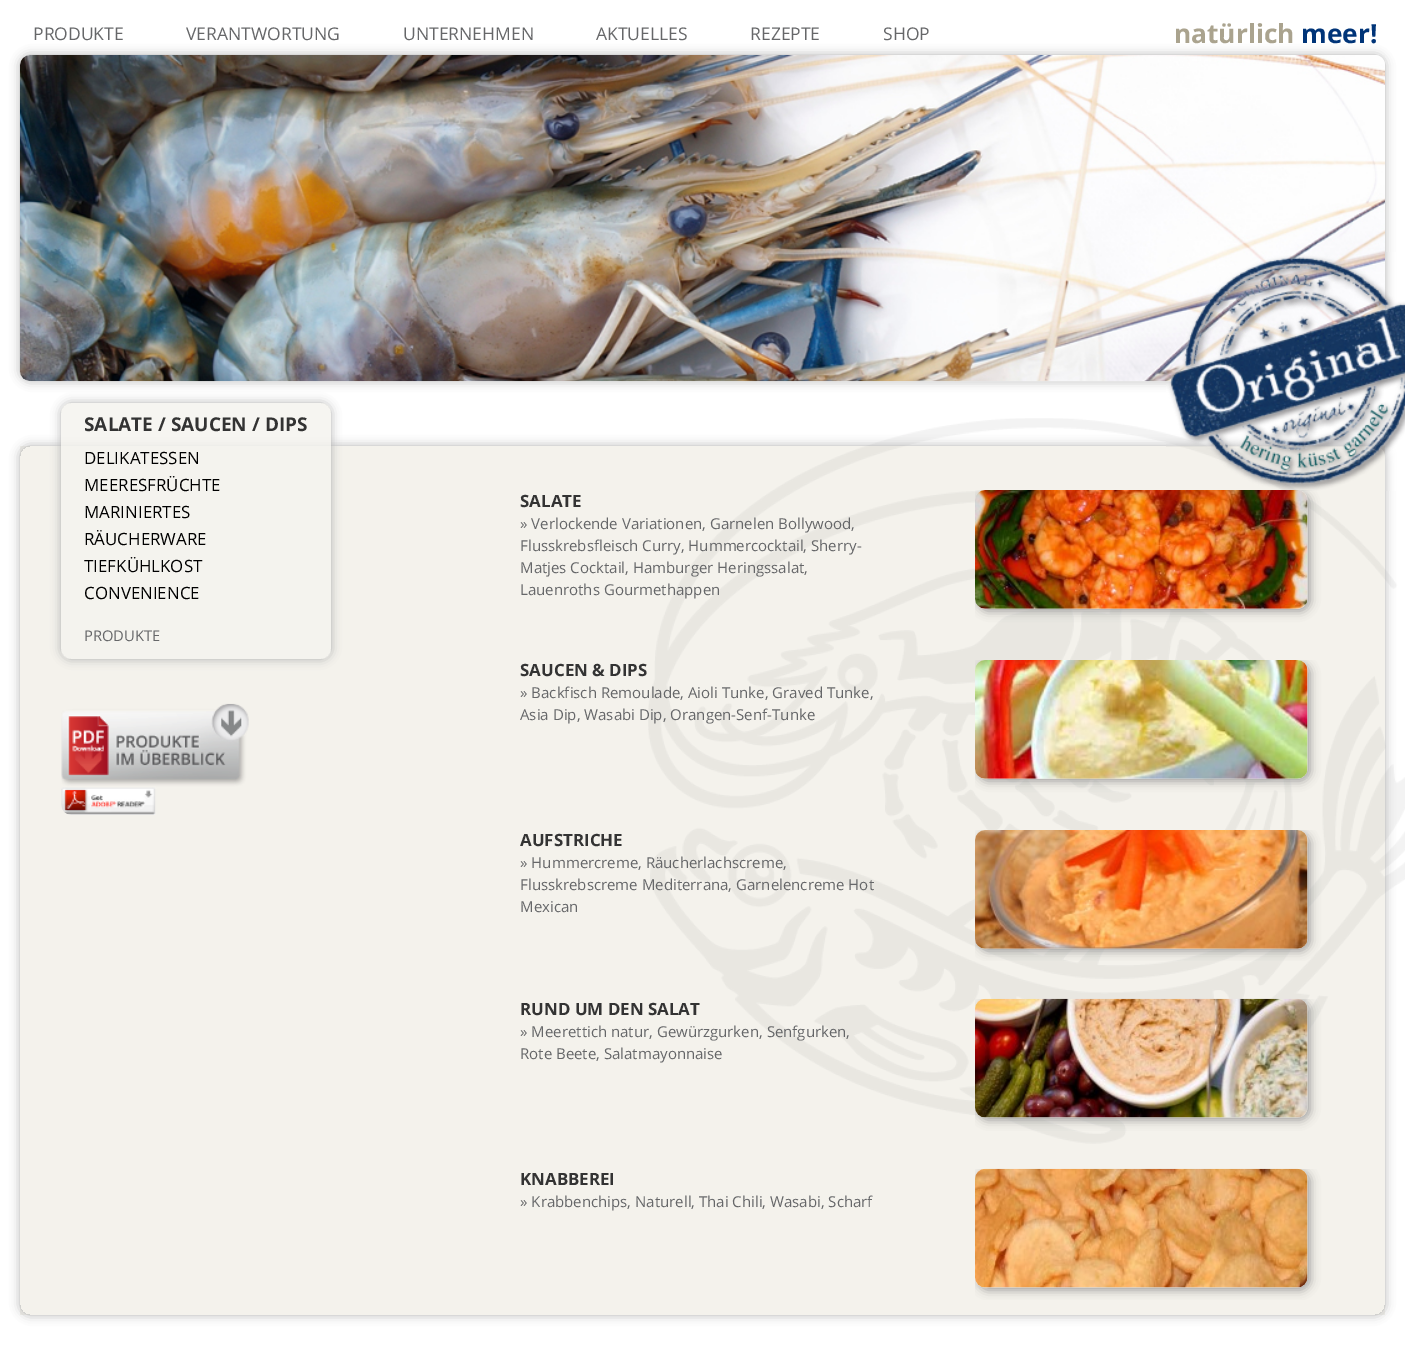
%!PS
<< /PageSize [1405 1351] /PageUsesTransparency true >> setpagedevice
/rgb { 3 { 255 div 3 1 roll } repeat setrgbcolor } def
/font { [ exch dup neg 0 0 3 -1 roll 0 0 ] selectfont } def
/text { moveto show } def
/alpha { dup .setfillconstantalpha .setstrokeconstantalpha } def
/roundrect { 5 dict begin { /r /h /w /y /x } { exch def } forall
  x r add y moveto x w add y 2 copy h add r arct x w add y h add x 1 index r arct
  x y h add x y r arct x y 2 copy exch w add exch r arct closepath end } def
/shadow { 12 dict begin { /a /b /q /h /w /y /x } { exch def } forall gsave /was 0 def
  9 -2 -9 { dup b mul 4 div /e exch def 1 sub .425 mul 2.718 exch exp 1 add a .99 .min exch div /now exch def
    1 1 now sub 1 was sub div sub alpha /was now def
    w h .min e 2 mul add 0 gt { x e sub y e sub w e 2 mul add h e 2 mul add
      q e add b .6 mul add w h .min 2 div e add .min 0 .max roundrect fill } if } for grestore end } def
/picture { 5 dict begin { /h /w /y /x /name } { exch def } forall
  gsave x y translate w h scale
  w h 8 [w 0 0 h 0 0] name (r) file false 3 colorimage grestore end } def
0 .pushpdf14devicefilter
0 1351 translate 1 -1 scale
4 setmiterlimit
255 255 255 rgb
0 0 1405 1351 rectfill
175 175 175 rgb
20 55 1365 326 10 5 1 shadow
(img_01.rgb) 20 55 1365 327 picture
244 242 236 rgb
20 446 1365 869 rectfill
(img_09.rgb) 648 418 757 726 picture
gsave
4 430 moveto 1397 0 rlineto 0 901 rlineto -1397 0 rlineto closepath 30 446 moveto 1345 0 rlineto 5.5 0 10 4.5 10 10 rcurveto 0 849 rlineto 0 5.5 -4.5 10 -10 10 rcurveto -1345 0 rlineto -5.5 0 -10 -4.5 -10 -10 rcurveto 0 -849 rlineto 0 -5.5 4.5 -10 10 -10 rcurveto closepath eoclip newpath
175 175 175 rgb
20 446 1365 869 10 5 1 shadow
grestore
gsave
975 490 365 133 rectclip
153 153 153 rgb
978 493 332 118 10 5 1 shadow
grestore
(img_04.rgb) 975 490 333 119 picture
(img_02.rgb) 1166 252 239 239 picture
gsave
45 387 moveto 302 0 rlineto 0 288 rlineto -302 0 rlineto closepath 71 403 moveto 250 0 rlineto 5.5 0 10 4.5 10 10 rcurveto 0 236 rlineto 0 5.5 -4.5 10 -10 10 rcurveto -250 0 rlineto -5.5 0 -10 -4.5 -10 -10 rcurveto 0 -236 rlineto 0 -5.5 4.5 -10 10 -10 rcurveto closepath eoclip newpath
175 175 175 rgb
61 403 270 256 10 5 1 shadow
grestore
0.8 alpha
244 243 238 rgb
61 403 270 256 10 roundrect fill
1 alpha
(img_03.rgb) 61 703 188 112 picture
gsave
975 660 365 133 rectclip
153 153 153 rgb
978 663 332 118 10 5 1 shadow
grestore
(img_05.rgb) 975 660 333 119 picture
gsave
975 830 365 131 rectclip
153 153 153 rgb
978 833 332 118 10 5 1 shadow
grestore
(img_06.rgb) 975 830 333 119 picture
gsave
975 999 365 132 rectclip
153 153 153 rgb
978 1001 332 119 10 5 1 shadow
grestore
(img_07.rgb) 975 998 333 120 picture
gsave
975 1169 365 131 rectclip
153 153 153 rgb
978 1171 332 119 10 5 1 shadow
grestore
(img_08.rgb) 975 1168 333 120 picture
/OpenSans-Regular 17.5 font
102 103 105 rgb
(PRODUKTE) 33 40 text
(VERANTWORTUNG) 186 40 text
(UNTERNEHMEN) 403 40 text
(AKTUELLES) 596 40 text
(REZEPTE) 750 40 text
(SHOP) 883 40 text
/OpenSans-Bold 26.25 font
170 163 142 rgb
(natürlich) 1174 43 text
0 52 120 rgb
(meer!) 1301 43 text
/OpenSans-Bold 19 font
51 51 51 rgb
(SALATE / SAUCEN / DIPS) 84 431 text
/OpenSans-Regular 16.9 font
0 0 0 rgb
(DELIKATESSEN) 84 464 text
(MEERESFRÜCHTE) 84 491 text
(MARINIERTES) 84 518 text
(RÄUCHERWARE) 84 545 text
(TIEFKÜHLKOST) 84 572 text
(CONVENIENCE) 84 599 text
/OpenSans-Regular 14.75 font
102 103 105 rgb
(PRODUKTE) 84 641 text
/OpenSans-Bold 16.9 font
51 51 51 rgb
(SALATE) 520 507 text
/OpenSans-Regular 15 font
102 103 105 rgb
(» Verlockende Variationen, Garnelen Bollywood,) 520 529 text
(Flusskrebsfleisch Curry, Hummercocktail, Sherry-) 520 551 text
(Matjes Cocktail, Hamburger Heringssalat,) 520 573 text
(Lauenroths Gourmethappen) 520 595 text
/OpenSans-Bold 16.9 font
51 51 51 rgb
(SAUCEN & DIPS) 520 676 text
/OpenSans-Regular 15 font
102 103 105 rgb
(» Backfisch Remoulade, Aioli Tunke, Graved Tunke,) 520 698 text
(Asia Dip, Wasabi Dip, Orangen-Senf-Tunke) 520 720 text
/OpenSans-Bold 16.9 font
51 51 51 rgb
(AUFSTRICHE) 520 846 text
/OpenSans-Regular 15 font
102 103 105 rgb
(» Hummercreme, Räucherlachscreme,) 520 868 text
(Flusskrebscreme Mediterrana, Garnelencreme Hot) 520 890 text
(Mexican) 520 912 text
/OpenSans-Bold 16.9 font
51 51 51 rgb
(RUND UM DEN SALAT) 520 1015 text
/OpenSans-Regular 15 font
102 103 105 rgb
(» Meerettich natur, Gewürzgurken, Senfgurken,) 520 1037 text
(Rote Beete, Salatmayonnaise) 520 1059 text
/OpenSans-Bold 16.9 font
51 51 51 rgb
(KNABBEREI) 520 1185 text
/OpenSans-Regular 15 font
102 103 105 rgb
(» Krabbenchips, Naturell, Thai Chili, Wasabi, Scharf) 520 1207 text
.poppdf14devicefilter showpage
